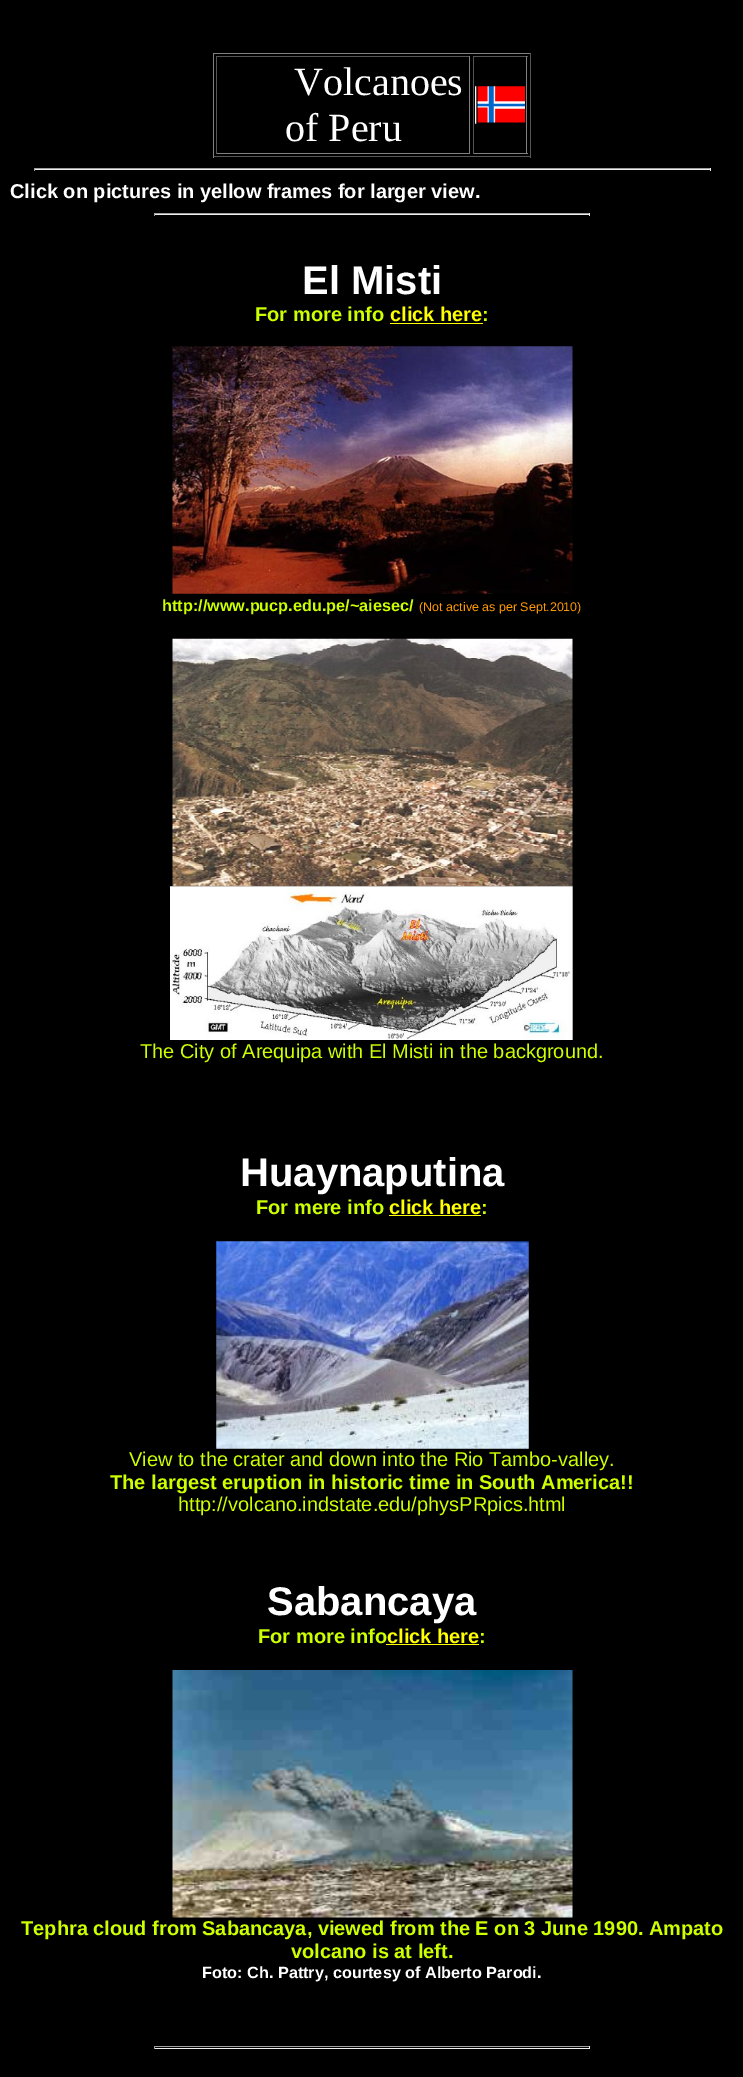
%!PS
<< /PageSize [743 2077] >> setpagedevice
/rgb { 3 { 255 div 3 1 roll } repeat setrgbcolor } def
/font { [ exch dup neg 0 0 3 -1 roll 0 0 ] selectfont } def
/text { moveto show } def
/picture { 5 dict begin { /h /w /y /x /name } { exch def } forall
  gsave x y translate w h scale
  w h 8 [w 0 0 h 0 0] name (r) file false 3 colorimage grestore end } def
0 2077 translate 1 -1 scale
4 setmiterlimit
0 0 0 rgb
0 0 743 2077 rectfill
128 128 128 rgb
213 53 318 1 rectfill
85 85 85 rgb
530 53 1 105 rectfill
213 156 318 1 rectfill
128 128 128 rgb
213 53 1 105 rectfill
85 85 85 rgb
216 56 254 1 rectfill
128 128 128 rgb
469 56 1 98 rectfill
216 153 254 1 rectfill
85 85 85 rgb
216 56 1 98 rectfill
473 56 55 1 rectfill
128 128 128 rgb
526 56 1 98 rectfill
473 153 55 1 rectfill
85 85 85 rgb
473 56 1 98 rectfill
(img_01.rgb) 475 86 50 38 picture
159 159 159 rgb
34 168 677 1 rectfill
238 238 238 rgb
710 168 1 3 rectfill
34 169 677 1 rectfill
159 159 159 rgb
34 168 1 3 rectfill
154 213 436 1 rectfill
238 238 238 rgb
589 213 1 3 rectfill
154 214 436 1 rectfill
159 159 159 rgb
154 213 1 3 rectfill
255 255 0 rgb
390 323 93 1 rectfill
(img_02.rgb) 172 346 401 248 picture
(img_03.rgb) 172 638 401 249 picture
(img_04.rgb) 170 886 404 154 picture
389 1215 92 1 rectfill
(img_05.rgb) 216 1241 313 208 picture
386 1644 93 1 rectfill
(img_06.rgb) 172 1670 401 248 picture
159 159 159 rgb
154 2046 436 1 rectfill
238 238 238 rgb
589 2046 1 3 rectfill
154 2048 436 1 rectfill
159 159 159 rgb
154 2046 1 3 rectfill
/LiberationSerif-Regular 40 font
255 255 255 rgb
(Volcanoes) 294 95 text
(of Peru) 285 141 text
/LiberationSans-Bold 20 font
(Click on pictures in yellow frames for larger view.) 10 198 text
/LiberationSans-Bold 40 font
(El Misti) 302 294 text
/LiberationSans-Bold 20 font
204 255 0 rgb
(For more info) 255 321 text
255 255 0 rgb
(click here) 390 321 text
204 255 0 rgb
(:) 482 321 text
/LiberationSans-Bold 16.25 font
(http://www.pucp.edu.pe/~aiesec/) 162 611 text
/LiberationSans-Regular 12.5 font
255 153 0 rgb
(\(Not active as per Sept.2010\)) 419 611 text
/LiberationSans-Regular 20 font
204 255 0 rgb
(The City of Arequipa with El Misti in the background.) 140 1058 text
/LiberationSans-Bold 40 font
255 255 255 rgb
(Huaynaputina) 240 1186 text
/LiberationSans-Bold 20 font
204 255 0 rgb
(For mere info) 256 1214 text
255 255 0 rgb
(click here) 389 1214 text
204 255 0 rgb
(:) 481 1214 text
/LiberationSans-Regular 20 font
(View to the crater and down into the Rio Tambo-valley.) 129 1466 text
/LiberationSans-Bold 20 font
(The largest eruption in historic time in South America!!) 110 1489 text
/LiberationSans-Regular 20 font
(http://volcano.indstate.edu/physPRpics.html) 178 1511 text
/LiberationSans-Bold 40 font
255 255 255 rgb
(Sabancaya) 267 1615 text
/LiberationSans-Bold 20 font
204 255 0 rgb
(For more info) 258 1643 text
255 255 0 rgb
(click here) 387 1643 text
204 255 0 rgb
(:) 479 1643 text
(Tephra cloud from Sabancaya, viewed from the E on 3 June 1990. Ampato) 21 1935 text
(volcano is at left.) 291 1958 text
/LiberationSans-Bold 16.25 font
255 255 255 rgb
(Foto: Ch. Pattry, courtesy of Alberto Parodi.) 202 1978 text
showpage
